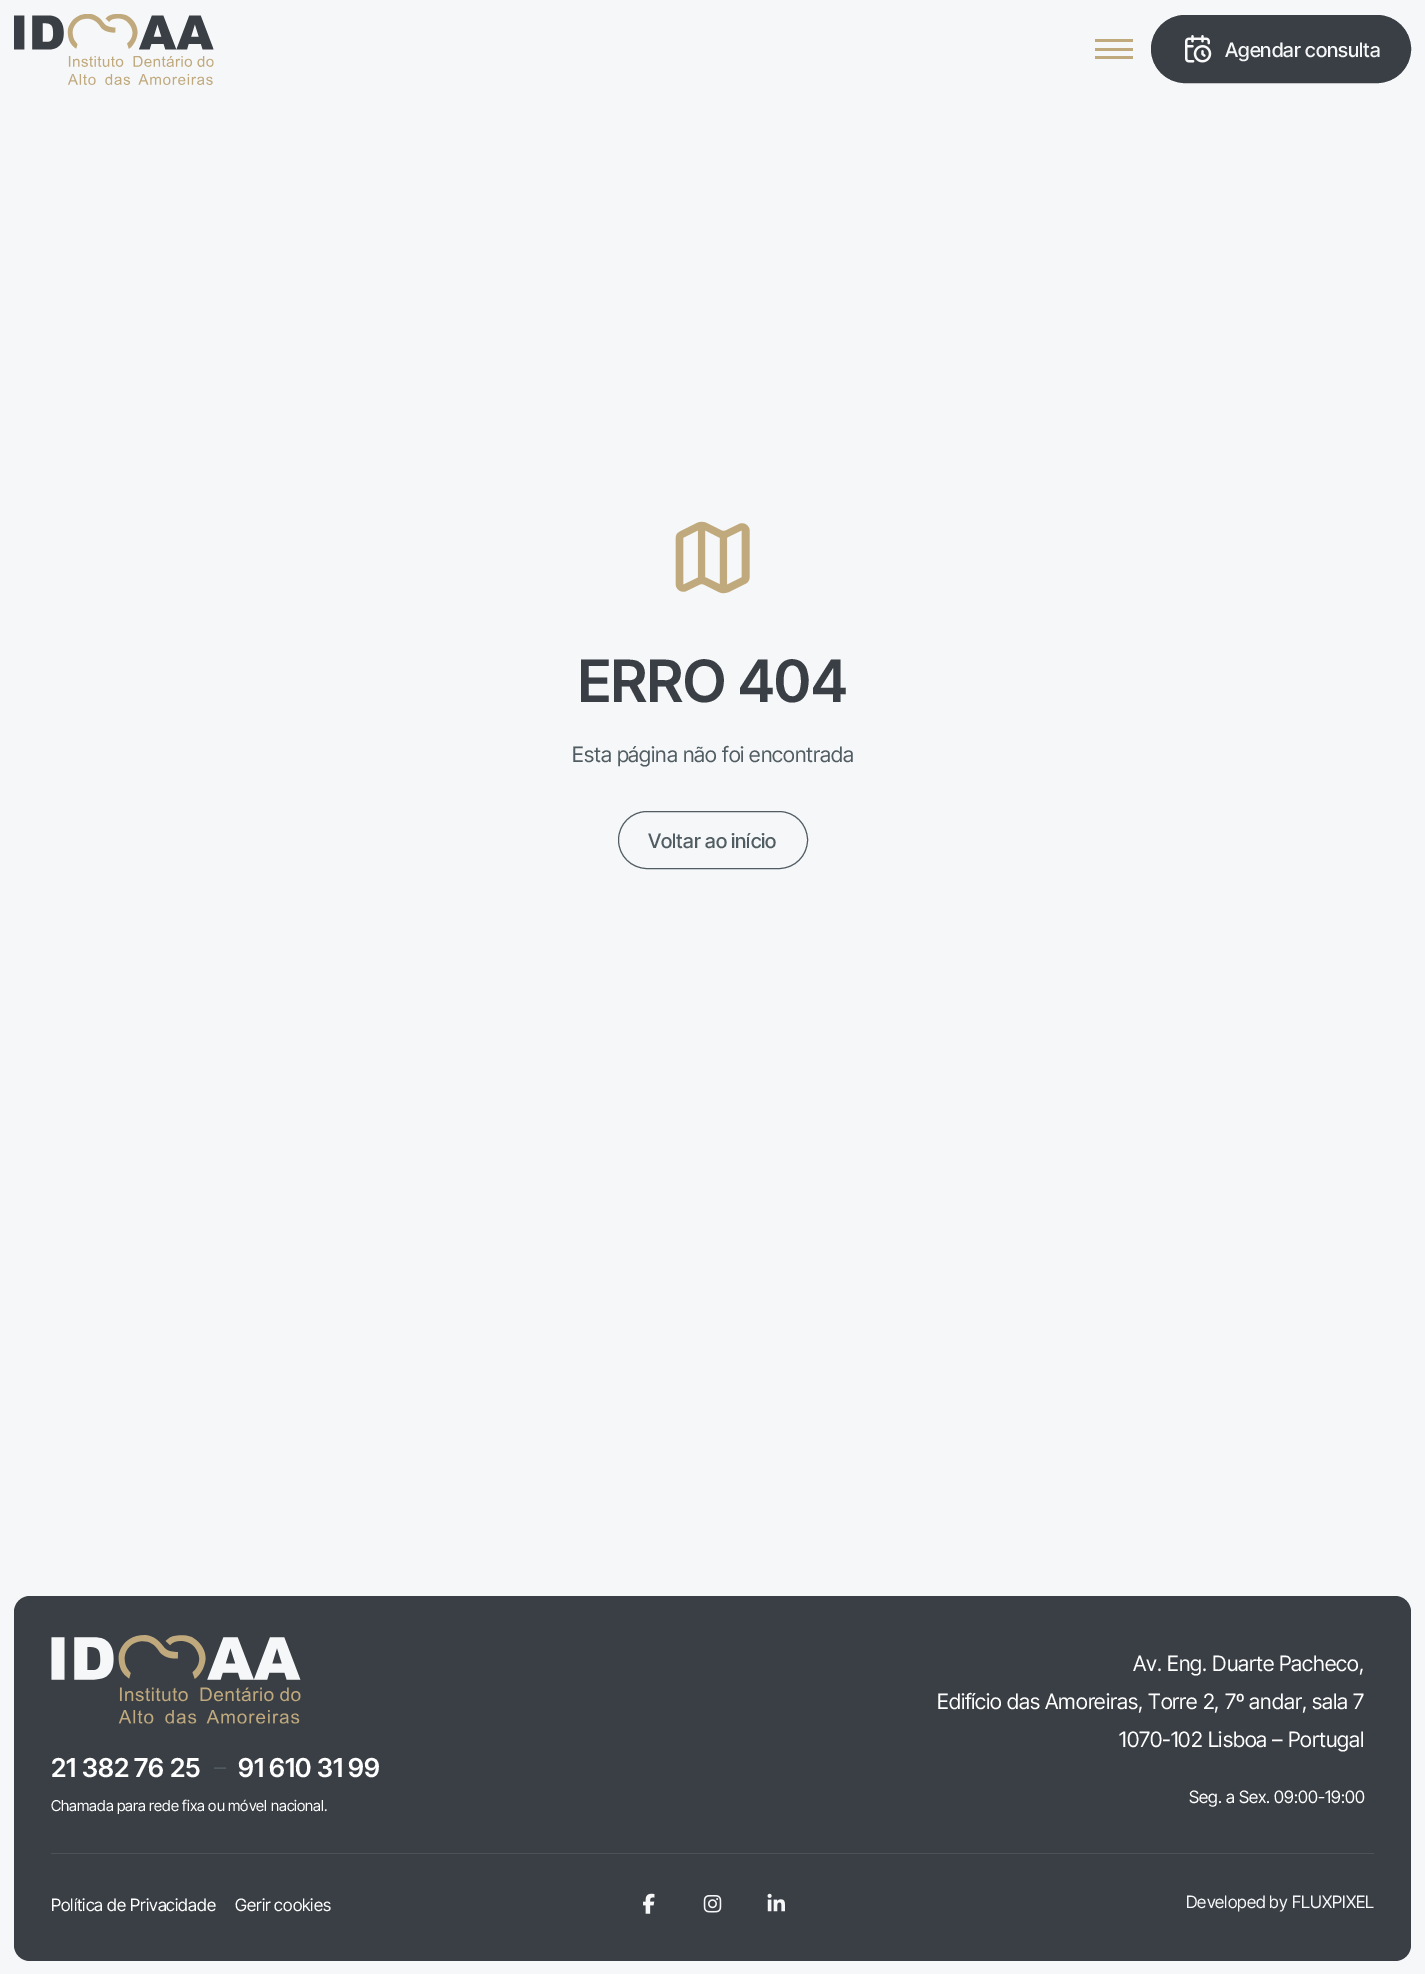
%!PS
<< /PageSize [1425 1974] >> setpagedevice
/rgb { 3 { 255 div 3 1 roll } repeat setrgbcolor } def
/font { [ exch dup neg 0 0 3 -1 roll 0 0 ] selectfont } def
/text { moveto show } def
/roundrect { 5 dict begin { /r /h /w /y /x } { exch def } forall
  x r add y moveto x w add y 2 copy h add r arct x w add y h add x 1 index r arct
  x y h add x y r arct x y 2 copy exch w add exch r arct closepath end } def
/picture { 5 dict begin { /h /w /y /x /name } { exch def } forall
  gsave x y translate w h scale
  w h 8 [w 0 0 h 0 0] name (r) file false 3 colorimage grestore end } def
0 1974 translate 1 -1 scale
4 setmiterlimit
246 247 248 rgb
0 0 1425 1974 rectfill
(img_01.rgb) 14 14 200 71 picture
192 169 125 rgb
1095 39 38 3 rectfill
1095 48 38 3 rectfill
1095 56 38 3 rectfill
58 63 69 rgb
1151.5 15.5 259 67 33.5 roundrect gsave fill grestore
stroke
(img_02.rgb) 1185 35 27 28 picture
(img_03.rgb) 675 521 75 73 picture
81 93 98 rgb
618.5 811.5 189 57 28.5 roundrect stroke
58 63 69 rgb
14 1596 1397 365 16 roundrect fill
78 82 88 rgb
51 1853 1323 1 rectfill
(img_04.rgb) 51 1635 250 89 picture
(img_05.rgb) 214 1767 13 2 picture
(img_06.rgb) 643 1893 12 21 picture
(img_07.rgb) 703 1895 19 18 picture
(img_08.rgb) 767 1893 18 19 picture
/InterTight-Medium 20 font
246 247 248 rgb
(Agendar consulta) 1225 57 text
/InterTight-SemiBold 58.25 font
58 63 69 rgb
(ERRO 404) 578 702 text
/InterTight-Regular 21.25 font
81 93 98 rgb
(Esta página não foi encontrada) 572 762 text
/InterTight-Medium 20 font
(Voltar ao início) 648 848 text
/InterTight-SemiBold 26 font
255 255 255 rgb
(21 382 76 25) 51 1777 text
(91 610 31 99) 238 1777 text
/InterTight-Regular 15 font
(Chamada para rede fixa ou móvel nacional.) 51 1811 text
/InterTight-Regular 21.25 font
(Av. Eng. Duarte Pacheco,) 1133 1671 text
(Edifício das Amoreiras, Torre 2, 7º andar, sala 7) 937 1709 text
(1070-102 Lisboa – Portugal) 1119 1747 text
/InterTight-Regular 17.1 font
(Seg. a Sex. 09:00-19:00) 1189 1803 text
(Política de Privacidade) 51 1911 text
(Gerir cookies) 235 1911 text
246 247 248 rgb
(Developed by FLUXPIXEL) 1186 1908 text
showpage
